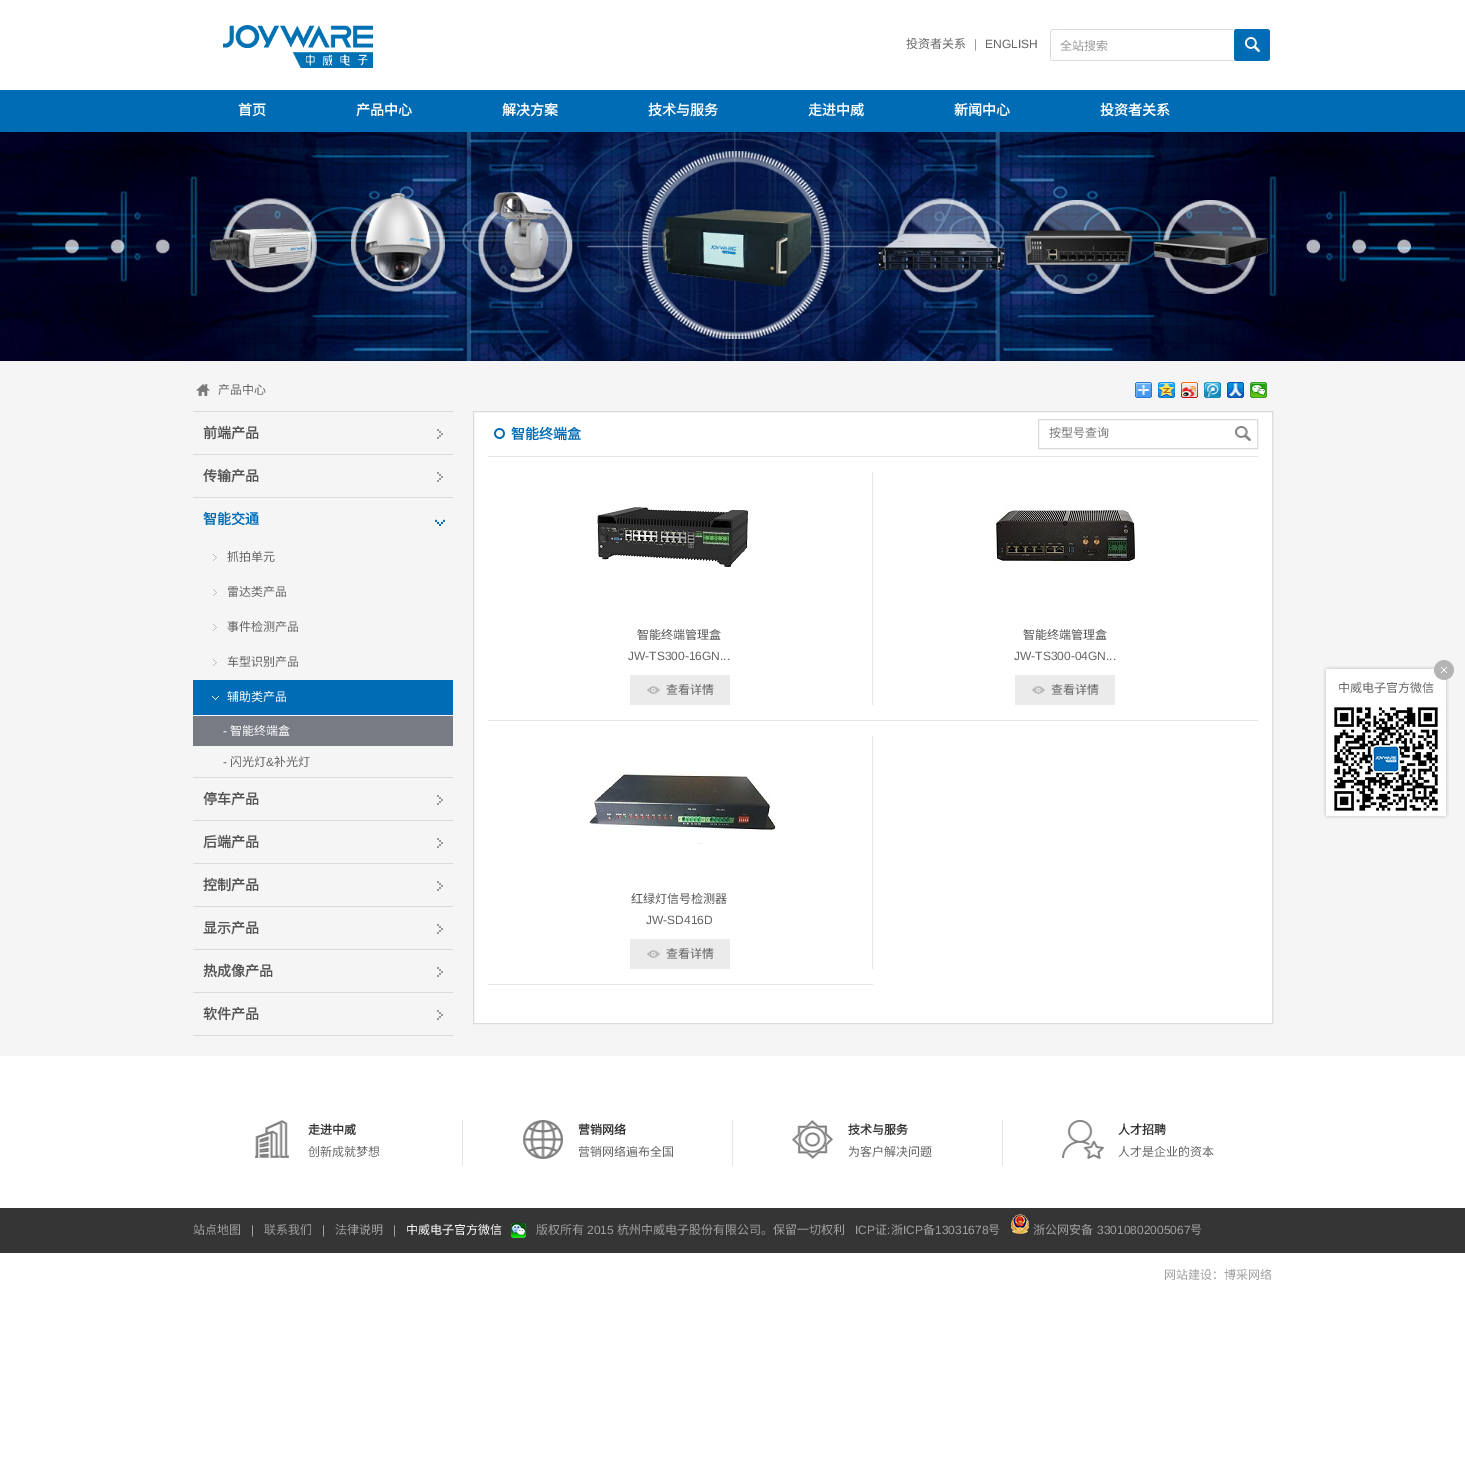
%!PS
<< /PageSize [1465 1480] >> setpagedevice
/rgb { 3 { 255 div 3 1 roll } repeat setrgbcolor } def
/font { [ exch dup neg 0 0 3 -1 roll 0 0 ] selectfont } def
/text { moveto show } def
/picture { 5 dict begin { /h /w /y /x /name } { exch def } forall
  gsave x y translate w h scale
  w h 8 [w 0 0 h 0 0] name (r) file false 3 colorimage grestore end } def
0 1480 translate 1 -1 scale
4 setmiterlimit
255 255 255 rgb
0 0 1465 1480 rectfill
(img_01.rgb) 223 25 150 43 picture
(img_02.rgb) 1050 29 220 32 picture
0 108 181 rgb
0 90 1465 42 rectfill
245 245 245 rgb
0 361 1465 695 rectfill
(img_03.rgb) 0 132 1465 229 picture
(img_04.rgb) 196 384 14 12 picture
(img_05.rgb) 1135 382 17 16 picture
(img_06.rgb) 1158 382 17 16 picture
(img_07.rgb) 1181 382 17 16 picture
(img_08.rgb) 1204 382 17 16 picture
(img_09.rgb) 1227 382 17 16 picture
(img_10.rgb) 1250 382 17 16 picture
219 219 219 rgb
193 1035 260 1 rectfill
193 411 260 1 rectfill
(img_11.rgb) 437 429 6 10 picture
193 454 260 1 rectfill
(img_11.rgb) 437 472 6 10 picture
193 497 260 1 rectfill
(img_12.rgb) 435 519 10 7 picture
(img_13.rgb) 213 554 4 7 picture
(img_13.rgb) 213 589 4 7 picture
(img_13.rgb) 213 624 4 7 picture
(img_13.rgb) 213 659 4 7 picture
0 108 181 rgb
193 680 260 35 rectfill
(img_14.rgb) 212 696 7 4 picture
119 123 132 rgb
193 716 260 30 rectfill
219 219 219 rgb
193 777 260 1 rectfill
(img_11.rgb) 437 795 6 10 picture
193 820 260 1 rectfill
(img_11.rgb) 437 838 6 10 picture
193 863 260 1 rectfill
(img_11.rgb) 437 881 6 10 picture
193 906 260 1 rectfill
(img_11.rgb) 437 924 6 10 picture
193 949 260 1 rectfill
(img_11.rgb) 437 967 6 10 picture
193 992 260 1 rectfill
(img_11.rgb) 437 1010 6 10 picture
255 255 255 rgb
473.5 411.5 moveto 799 0 rlineto 0 612 rlineto -799 0 rlineto closepath gsave fill grestore
219 219 219 rgb
stroke
229 229 229 rgb
488 456 770 1 rectfill
(img_15.rgb) 494 428 11 11 picture
219 219 219 rgb
1038.5 419.5 219 29 rectstroke
(img_16.rgb) 1235 426 16 15 picture
229 229 229 rgb
488 720 770 1 rectfill
872 472 1 233 rectfill
(img_17.rgb) 594 504 159 63 picture
235 235 235 rgb
630 675 100 30 rectfill
(img_18.rgb) 647 686 13 8 picture
(img_19.rgb) 995 505 143 62 picture
1015 675 100 30 rectfill
(img_18.rgb) 1032 686 13 8 picture
229 229 229 rgb
488 984 385 1 rectfill
872 736 1 233 rectfill
(img_20.rgb) 586 770 191 74 picture
235 235 235 rgb
630 939 100 30 rectfill
(img_18.rgb) 647 950 13 8 picture
(img_21.rgb) 1323 666 126 153 picture
(img_22.rgb) 1434 660 20 20 picture
(img_23.rgb) 1441 667 6 6 picture
(img_24.rgb) 1330 704 111 109 picture
229 229 229 rgb
462 1120 1 46 rectfill
(img_25.rgb) 255 1120 34 38 picture
732 1120 1 46 rectfill
(img_26.rgb) 523 1120 40 39 picture
1002 1120 1 46 rectfill
(img_27.rgb) 792 1120 41 39 picture
(img_28.rgb) 1062 1120 42 39 picture
53 53 53 rgb
0 1208 1465 45 rectfill
(img_29.rgb) 511 1223 15 15 picture
(img_30.rgb) 1011 1214 18 20 picture
/NotoSansCJKSC-Regular 12 font
102 102 102 rgb
(投资者关系) 906 48 text
/LiberationSans-Regular 12 font
153 153 153 rgb
(|) 974 48 text
102 102 102 rgb
(ENGLISH) 985 48 text
/NotoSansCJKSC-Regular 12 font
153 153 153 rgb
(全站搜索) 1060 50 text
/NotoSansCJKSC-Bold 14 font
255 255 255 rgb
(首页) 238 115 text
(产品中心) 356 115 text
(解决方案) 502 115 text
(技术与服务) 648 115 text
(走进中威) 808 115 text
(新闻中心) 954 115 text
(投资者关系) 1100 115 text
/NotoSansCJKSC-Regular 12 font
102 102 102 rgb
(产品中心) 218 394 text
/NotoSansCJKSC-Bold 14 font
85 85 85 rgb
(前端产品) 203 438 text
(传输产品) 203 481 text
0 108 181 rgb
(智能交通) 203 524 text
/NotoSansCJKSC-Regular 12 font
102 102 102 rgb
(抓拍单元) 227 561 text
(雷达类产品) 227 596 text
(事件检测产品) 227 631 text
(车型识别产品) 227 666 text
255 255 255 rgb
(辅助类产品) 227 701 text
/LiberationSans-Regular 12 font
(-) 223 735 text
/NotoSansCJKSC-Regular 12 font
(智能终端盒) 230 735 text
/LiberationSans-Regular 12 font
102 102 102 rgb
(-) 223 766 text
/NotoSansCJKSC-Regular 12 font
(闪光灯) 230 766 text
/LiberationSans-Regular 12 font
(&) 266 766 text
/NotoSansCJKSC-Regular 12 font
(补光灯) 274 766 text
/NotoSansCJKSC-Bold 14 font
85 85 85 rgb
(停车产品) 203 804 text
(后端产品) 203 847 text
(控制产品) 203 890 text
(显示产品) 203 933 text
(热成像产品) 203 976 text
(软件产品) 203 1019 text
0 108 181 rgb
(智能终端盒) 511 439 text
/NotoSansCJKSC-Regular 12 font
119 119 119 rgb
(按型号查询) 1049 437 text
85 85 85 rgb
(智能终端管理盒) 637 639 text
/LiberationSans-Regular 12 font
102 102 102 rgb
(JW-TS300-16GN...) 628 660 text
/NotoSansCJKSC-Regular 12 font
(查看详情) 666 694 text
85 85 85 rgb
(智能终端管理盒) 1023 639 text
/LiberationSans-Regular 12 font
102 102 102 rgb
(JW-TS300-04GN...) 1014 660 text
/NotoSansCJKSC-Regular 12 font
(查看详情) 1051 694 text
85 85 85 rgb
(红绿灯信号检测器) 631 903 text
/LiberationSans-Regular 12 font
102 102 102 rgb
(JW-SD416D) 646 924 text
/NotoSansCJKSC-Regular 12 font
(查看详情) 666 958 text
(中威电子官方微信) 1338 692 text
/NotoSansCJKSC-Bold 12 font
53 53 53 rgb
(走进中威) 308 1134 text
/NotoSansCJKSC-Regular 12 font
102 102 102 rgb
(创新成就梦想) 308 1156 text
/NotoSansCJKSC-Bold 12 font
53 53 53 rgb
(营销网络) 578 1134 text
/NotoSansCJKSC-Regular 12 font
102 102 102 rgb
(营销网络遍布全国) 578 1156 text
/NotoSansCJKSC-Bold 12 font
53 53 53 rgb
(技术与服务) 848 1134 text
/NotoSansCJKSC-Regular 12 font
102 102 102 rgb
(为客户解决问题) 848 1156 text
/NotoSansCJKSC-Bold 12 font
53 53 53 rgb
(人才招聘) 1118 1134 text
/NotoSansCJKSC-Regular 12 font
102 102 102 rgb
(人才是企业的资本) 1118 1156 text
161 161 161 rgb
(站点地图) 193 1234 text
/LiberationSans-Regular 12 font
(|) 251 1234 text
/NotoSansCJKSC-Regular 12 font
(联系我们) 264 1234 text
/LiberationSans-Regular 12 font
(|) 322 1234 text
/NotoSansCJKSC-Regular 12 font
(法律说明) 335 1234 text
/LiberationSans-Regular 12 font
(|) 393 1234 text
/NotoSansCJKSC-Regular 12 font
255 255 255 rgb
(中威电子官方微信) 406 1234 text
161 161 161 rgb
(版权所有) 536 1234 text
/LiberationSans-Regular 12 font
(2015) 587 1234 text
/NotoSansCJKSC-Regular 12 font
(杭州中威电子股份有限公司。保留一切权利) 617 1234 text
/LiberationSans-Regular 12 font
(ICP) 855 1234 text
/NotoSansCJKSC-Regular 12 font
(证) 875 1234 text
/LiberationSans-Regular 12 font
(:) 887 1234 text
/NotoSansCJKSC-Regular 12 font
(浙) 891 1234 text
/LiberationSans-Regular 12 font
(ICP) 903 1234 text
/NotoSansCJKSC-Regular 12 font
(备) 923 1234 text
/LiberationSans-Regular 12 font
(13031678) 935 1234 text
/NotoSansCJKSC-Regular 12 font
(号) 988 1234 text
(浙公网安备) 1033 1234 text
/LiberationSans-Regular 12 font
(33010802005067) 1097 1234 text
/NotoSansCJKSC-Regular 12 font
(号) 1190 1234 text
(网站建设：博采网络) 1164 1279 text
showpage
